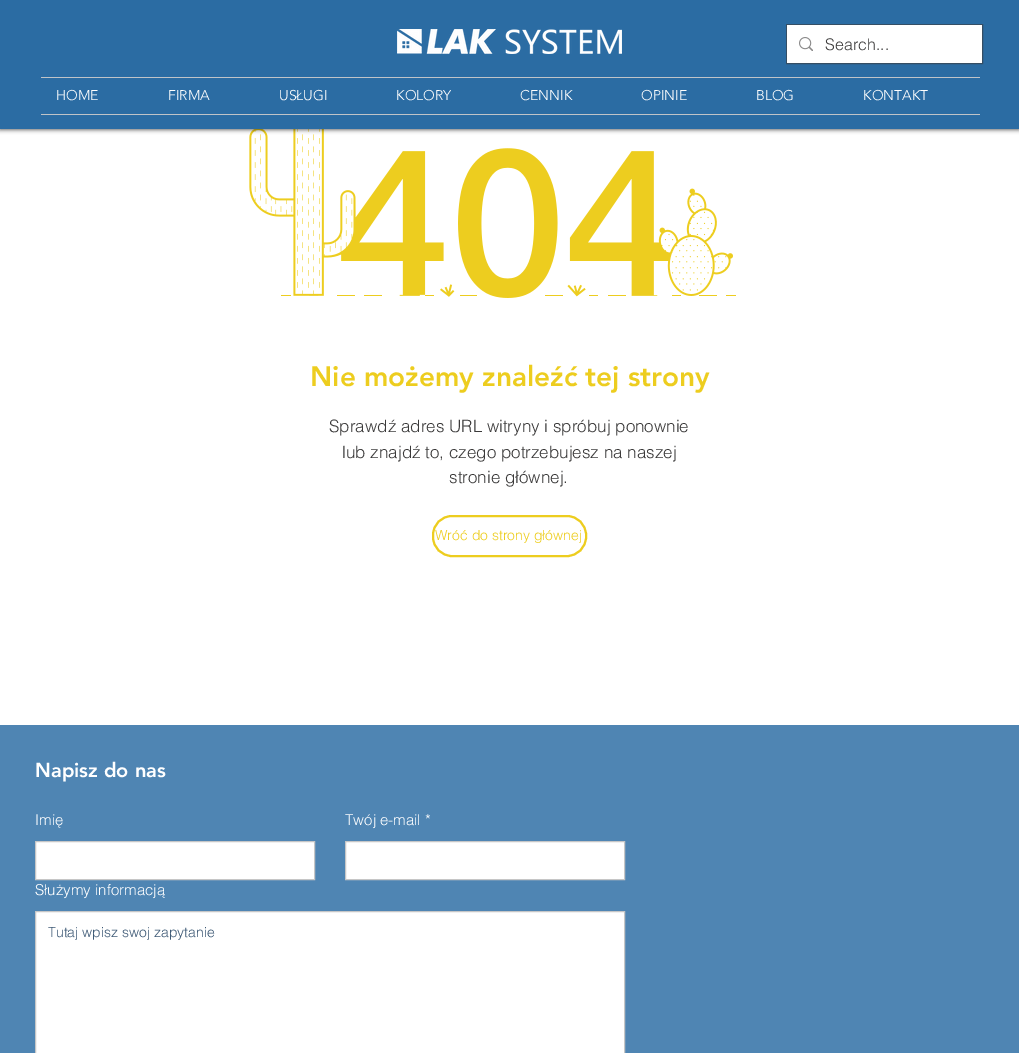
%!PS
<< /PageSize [1019 1053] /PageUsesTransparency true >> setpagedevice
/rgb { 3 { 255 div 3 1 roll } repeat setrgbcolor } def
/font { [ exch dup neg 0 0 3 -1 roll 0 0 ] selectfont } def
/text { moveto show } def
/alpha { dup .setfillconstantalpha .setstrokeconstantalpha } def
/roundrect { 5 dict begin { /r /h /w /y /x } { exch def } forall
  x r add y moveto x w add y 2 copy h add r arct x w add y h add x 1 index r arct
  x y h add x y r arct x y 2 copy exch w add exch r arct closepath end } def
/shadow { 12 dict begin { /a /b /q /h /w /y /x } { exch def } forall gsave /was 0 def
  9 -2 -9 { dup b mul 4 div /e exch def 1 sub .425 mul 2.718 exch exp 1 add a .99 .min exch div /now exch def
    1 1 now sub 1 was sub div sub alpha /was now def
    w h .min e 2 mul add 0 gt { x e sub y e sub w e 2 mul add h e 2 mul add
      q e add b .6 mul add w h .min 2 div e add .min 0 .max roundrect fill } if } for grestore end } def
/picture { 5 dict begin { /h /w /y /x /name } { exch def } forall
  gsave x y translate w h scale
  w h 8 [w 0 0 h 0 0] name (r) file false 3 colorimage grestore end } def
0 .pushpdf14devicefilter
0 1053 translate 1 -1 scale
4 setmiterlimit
255 255 255 rgb
0 0 1019 1053 rectfill
(img_03.rgb) 249 129 487 169 picture
0 0 0 rgb
0 1 1019 129 0 2 0.6 shadow
43 108 163 rgb
0 0 1019 129 rectfill
(img_01.rgb) 397 29 225 25 picture
53 78 100 rgb
786.5 24.5 196 39 rectstroke
255 255 255 rgb
787 25 195 38 rectfill
(img_02.rgb) 799 37 14 14 picture
192 196 200 rgb
41 77 939 1 rectfill
41 114 939 1 rectfill
237 205 31 rgb
2 setlinewidth
433 516 153 40 19 roundrect stroke
79 133 179 rgb
0 725 1019 328 rectfill
255 255 255 rgb
35.5 841.5 moveto 279 0 rlineto 0 38 rlineto -279 0 rlineto closepath gsave fill grestore
198 198 198 rgb
1 setlinewidth
stroke
255 255 255 rgb
345.5 841.5 moveto 279 0 rlineto 0 38 rlineto -279 0 rlineto closepath gsave fill grestore
198 198 198 rgb
stroke
255 255 255 rgb
35.5 911.5 moveto 589 0 rlineto 0 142 rlineto -589 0 rlineto closepath gsave fill grestore
198 198 198 rgb
stroke
/helvetica-Light 16 font
59 58 58 rgb
(Search...) 825 50 text
/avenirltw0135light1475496-Light 14 font
255 255 255 rgb
(HOME) 56 100 text
(FIRMA) 168 100 text
(USŁUGI) 279 100 text
(KOLORY) 396 100 text
(CENNIK) 520 100 text
(OPINIE) 641 100 text
(BLOG) 756 100 text
(KONTAKT) 863 100 text
/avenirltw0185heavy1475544-Black 28 font
237 205 31 rgb
(Nie możemy znaleźć tej strony) 310 386 text
/helvetica-Light 17 font
59 58 58 rgb
(Sprawdź adres URL witryny i spróbuj ponownie) 329 432 text
(lub znajdź to, czego potrzebujesz na naszej) 342 458 text
(stronie głównej.) 449 483 text
/helvetica-Light 14 font
237 205 31 rgb
(Wróć do strony głównej) 435 540 text
/avenirltw0185heavy1475544-Black 20 font
255 255 255 rgb
(Napisz do nas) 35 777 text
/helvetica-Light 15 font
(Imię) 35 825 text
(Twój e-mail *) 345 825 text
(Służymy informacją) 35 895 text
/helvetica-Light 14 font
61 89 117 rgb
(Tutaj wpisz swoj zapytanie) 48 937 text
.poppdf14devicefilter showpage
